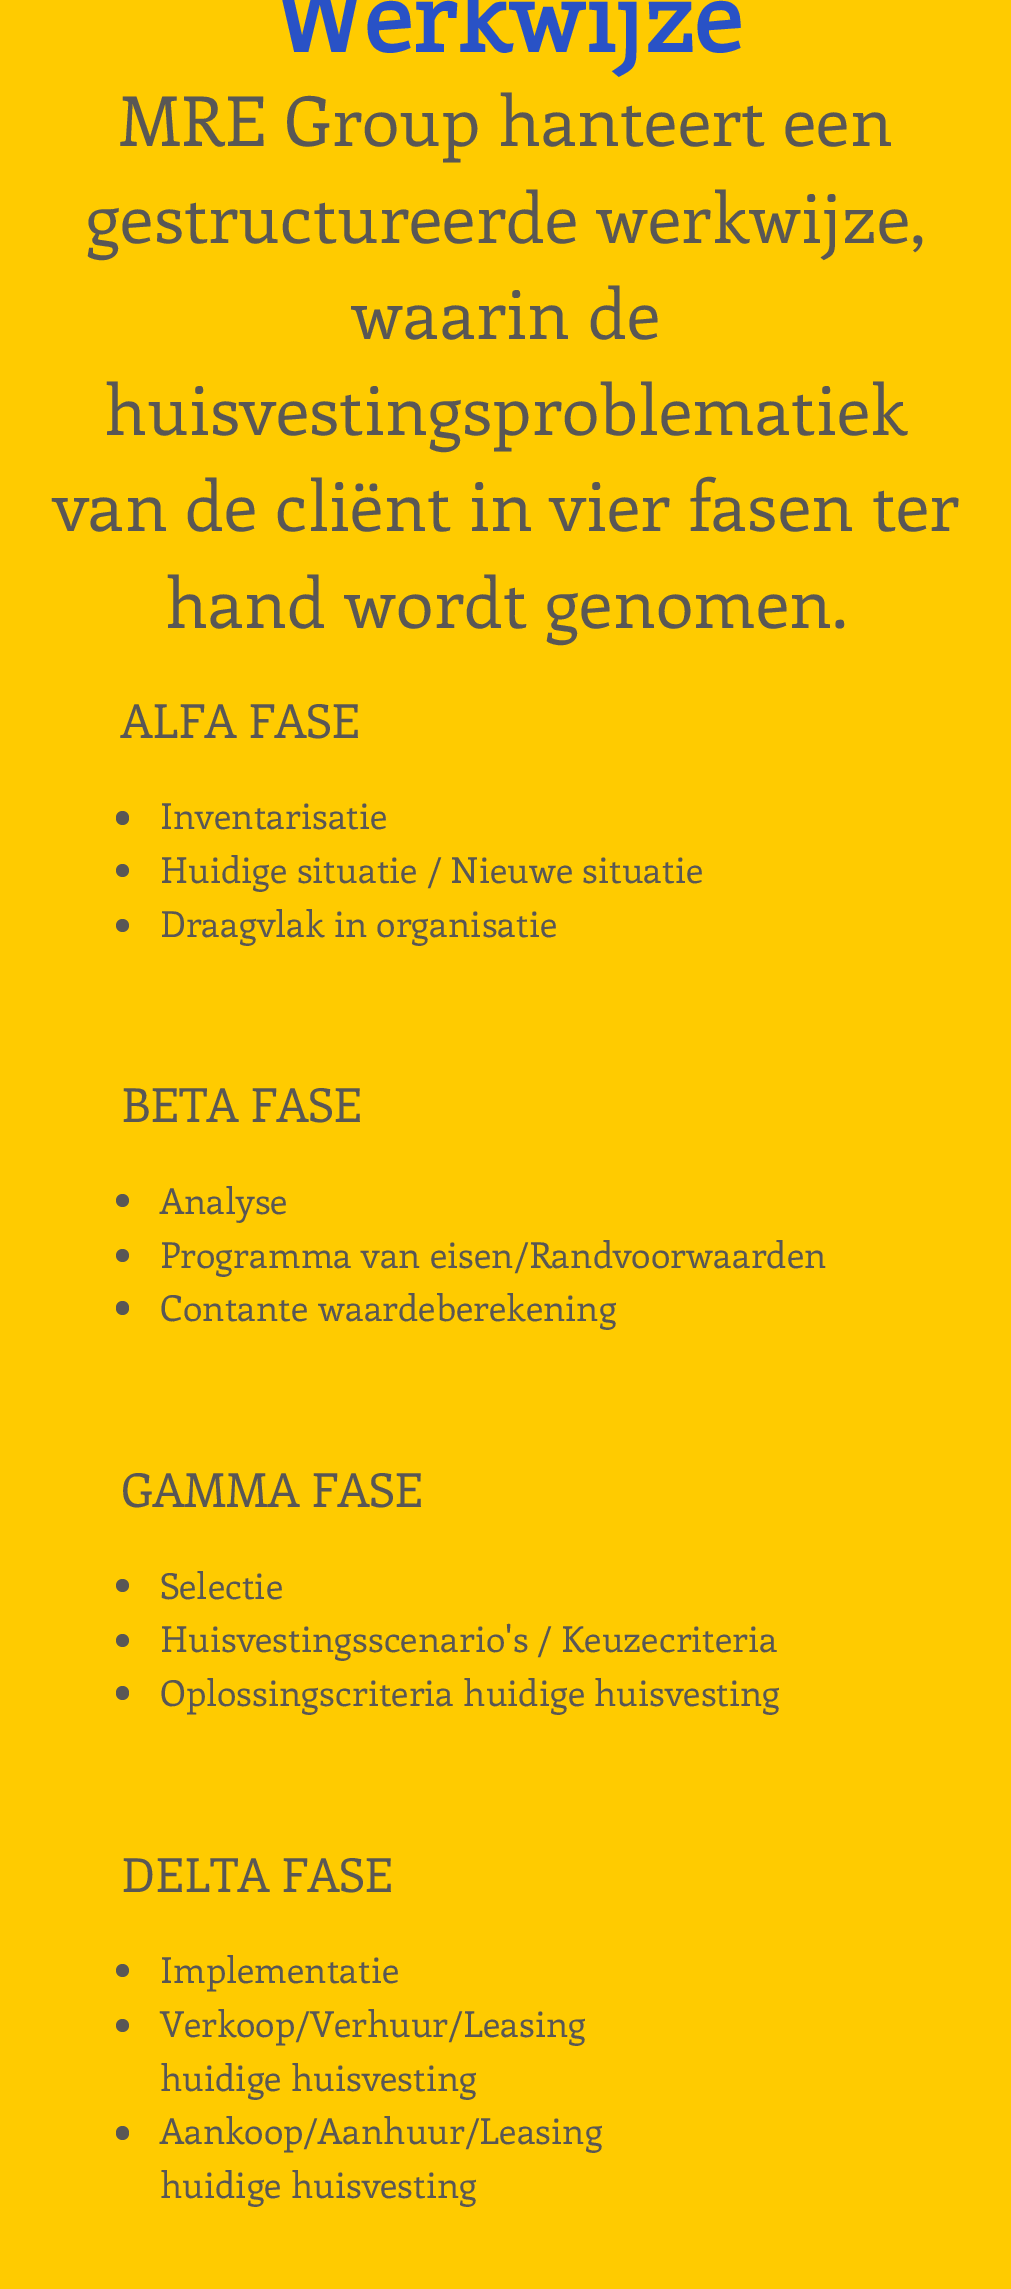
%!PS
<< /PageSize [1011 2289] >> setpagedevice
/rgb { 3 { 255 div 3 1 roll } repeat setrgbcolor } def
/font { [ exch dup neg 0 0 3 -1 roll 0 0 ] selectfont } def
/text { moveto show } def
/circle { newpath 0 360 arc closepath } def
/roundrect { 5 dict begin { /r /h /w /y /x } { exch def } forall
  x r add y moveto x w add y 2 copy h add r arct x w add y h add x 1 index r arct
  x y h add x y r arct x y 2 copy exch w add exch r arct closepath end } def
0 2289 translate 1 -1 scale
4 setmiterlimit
255 203 0 rgb
0 0 1011 2289 rectfill
89 87 85 rgb
116 811 13 14 6.5 roundrect fill
122.5 870.5 6.5 circle fill
122.5 925.5 6.5 circle fill
122.5 1200.5 6.5 circle fill
122.5 1255.5 6.5 circle fill
116 1301 13 14 6.5 roundrect fill
122.5 1585.5 6.5 circle fill
122.5 1640.5 6.5 circle fill
116 1686 13 14 6.5 roundrect fill
122.5 1970.5 6.5 circle fill
122.5 2025.5 6.5 circle fill
116 2126 13 14 6.5 roundrect fill
/Enriqueta-Bold 99 font
41 82 198 rgb
(Werkwijze) 271 52 text
/Enriqueta-Regular 68.75 font
89 87 85 rgb
(MRE Group hanteert een) 119 146 text
(gestructureerde werkwijze,) 86 243 text
(waarin de) 351 339 text
(huisvestingsproblematiek) 104 435 text
(van de cliënt in vier fasen ter) 53 531 text
(hand wordt genomen.) 165 628 text
/Enriqueta-Regular 46.75 font
(ALFA FASE) 121 738 text
/Enriqueta-Regular 35.75 font
(Inventarisatie) 160 829 text
(Huidige situatie / Nieuwe situatie) 160 883 text
(Draagvlak in organisatie) 160 937 text
/Enriqueta-Regular 46.75 font
(BETA FASE) 121 1122 text
/Enriqueta-Regular 35.75 font
(Analyse) 160 1214 text
(Programma van eisen/Randvoorwaarden) 160 1268 text
(Contante waardeberekening) 160 1321 text
/Enriqueta-Regular 46.75 font
(GAMMA FASE) 121 1507 text
/Enriqueta-Regular 35.75 font
(Selectie) 160 1599 text
(Huisvestingsscenario's / Keuzecriteria) 160 1652 text
(Oplossingscriteria huidige huisvesting) 160 1706 text
/Enriqueta-Regular 46.75 font
(DELTA FASE) 121 1892 text
/Enriqueta-Regular 35.75 font
(Implementatie) 160 1983 text
(Verkoop/Verhuur/Leasing) 160 2037 text
(huidige huisvesting) 160 2091 text
(Aankoop/Aanhuur/Leasing) 160 2144 text
(huidige huisvesting) 160 2198 text
showpage
